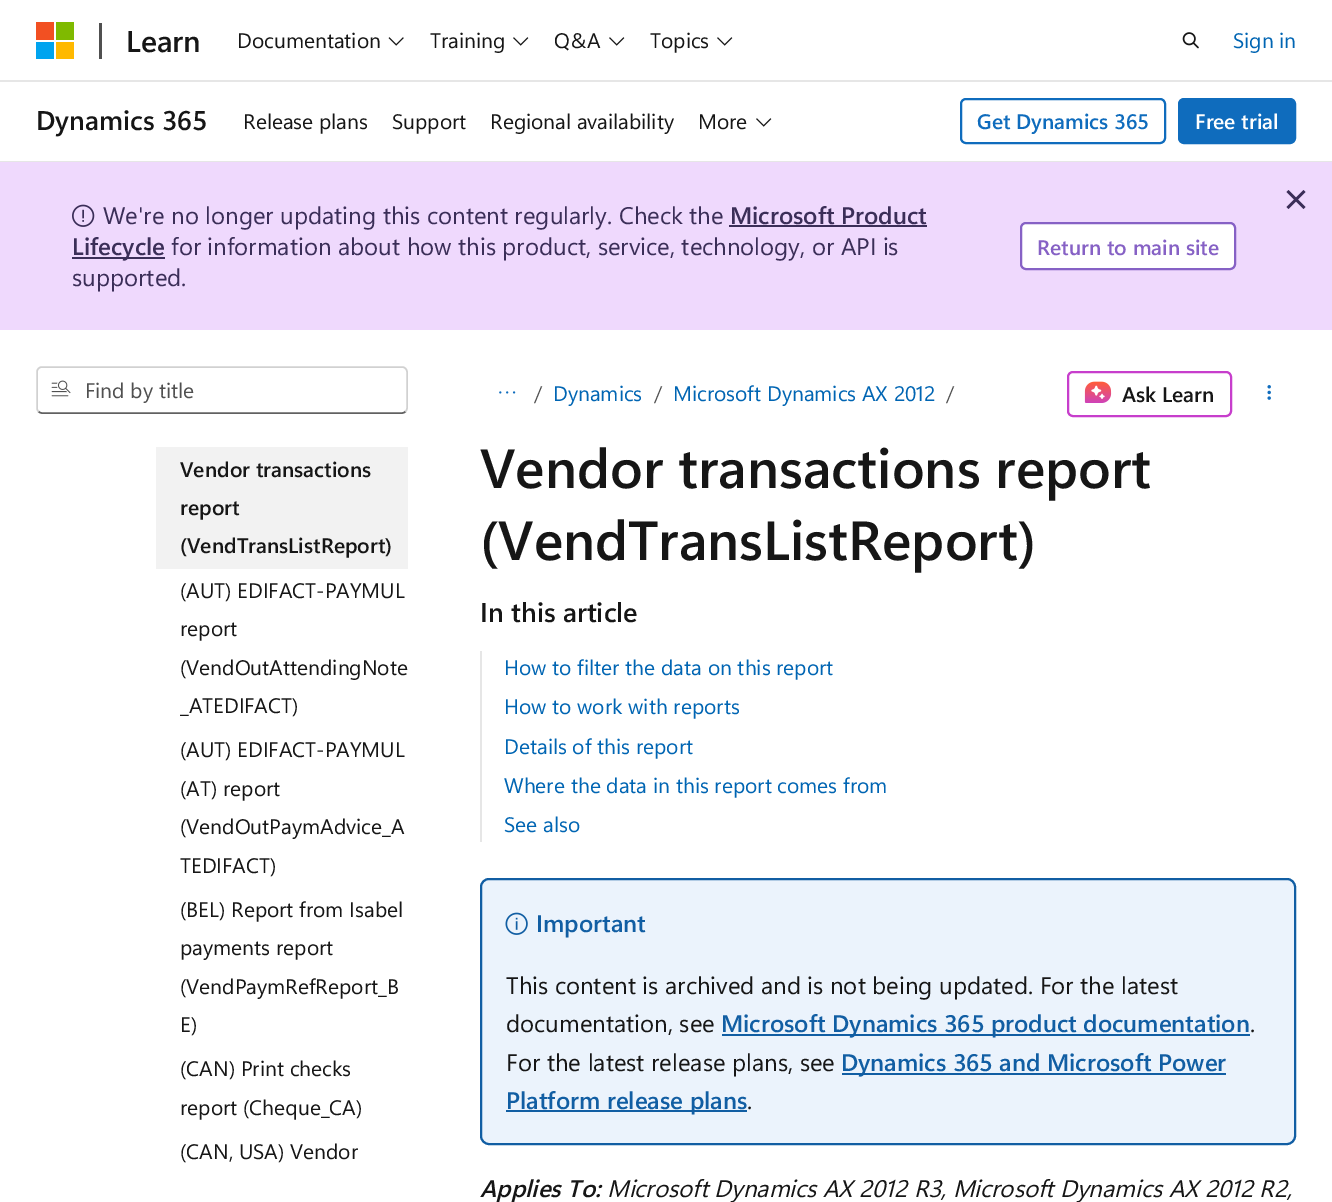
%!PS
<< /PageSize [1332 1202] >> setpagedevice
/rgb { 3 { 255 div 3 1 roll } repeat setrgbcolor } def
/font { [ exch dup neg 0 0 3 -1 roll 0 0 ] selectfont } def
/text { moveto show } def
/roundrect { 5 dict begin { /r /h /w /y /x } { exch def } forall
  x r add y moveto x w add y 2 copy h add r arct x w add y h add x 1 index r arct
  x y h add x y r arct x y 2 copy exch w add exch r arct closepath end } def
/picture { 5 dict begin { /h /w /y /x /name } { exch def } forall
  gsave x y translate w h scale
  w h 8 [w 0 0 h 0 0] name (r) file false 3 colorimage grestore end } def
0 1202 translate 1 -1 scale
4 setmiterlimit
255 255 255 rgb
0 0 1332 1202 rectfill
230 230 230 rgb
0 80 1332 2 rectfill
242 80 34 rgb
36 22 18 18 rectfill
127 186 0 rgb
56 22 18 18 rectfill
0 164 239 rgb
36 42 18 17 rectfill
255 185 0 rgb
56 42 18 17 rectfill
80 80 80 rgb
99 23 3 36 rectfill
(img_01.rgb) 388 37 16 9 picture
(img_02.rgb) 513 37 16 9 picture
(img_02.rgb) 609 37 16 9 picture
(img_02.rgb) 717 37 16 9 picture
(img_03.rgb) 1182 32 17 17 picture
230 230 230 rgb
0 161 1332 1 rectfill
(img_02.rgb) 756 118 16 9 picture
15 108 189 rgb
2 setlinewidth
961 99 204 44 5 roundrect stroke
1179 99 116 44 5 roundrect gsave fill grestore
stroke
239 217 253 rgb
0 162 1332 168 rectfill
59 46 88 rgb
1288.5 190 moveto 17 17 rlineto -2 2 rlineto -17 -17 rlineto closepath fill
1303.5 190 moveto 2 2 rlineto -17 17 rlineto -2 -2 rlineto closepath fill
(img_04.rgb) 72 204 23 23 picture
729 225 198 2 rectfill
72 257 93 2 rectfill
255 255 255 rgb
1021 223 214 46 5 roundrect gsave fill grestore
134 97 197 rgb
stroke
97 97 97 rgb
1.5 setlinewidth
405.5 411.5 moveto -1 1 -2 1.5 -3.5 1.5 rcurveto -360 0 rlineto -1.5 0 -2.5 -0.5 -3.5 -1.5 rcurveto stroke
209 209 209 rgb
38.5 411.5 moveto -1 -1 -1.5 -2 -1.5 -3.5 rcurveto 0 -36 rlineto 0 -1.5 0.5 -2.5 1.5 -3.5 rcurveto 1 -1 2 -1.5 3.5 -1.5 rcurveto 360 0 rlineto 1.5 0 2.5 0.5 3.5 1.5 rcurveto 1 1 1.5 2 1.5 3.5 rcurveto 0 36 rlineto 0 1.5 -0.5 2.5 -1.5 3.5 rcurveto stroke
(img_05.rgb) 51 380 20 17 picture
242 242 242 rgb
156 447 252 122 rectfill
(img_06.rgb) 499 391 17 3 picture
199 62 204 rgb
2 setlinewidth
1068 372 163 44 5 roundrect stroke
(img_07.rgb) 1084 381 28 22 picture
(img_08.rgb) 1267 385 4 15 picture
230 230 230 rgb
480 651 2 191 rectfill
235 243 252 rgb
481 879 814 265 8 roundrect gsave fill grestore
17 94 163 rgb
stroke
(img_09.rgb) 505 912 23 23 picture
722 1034 528 2 rectfill
842 1073 384 2 rectfill
506 1110 241 2 rectfill
/SegoeUI-SemiBold 30 font
22 22 22 rgb
(Learn) 126 52 text
/SegoeUI-Regular 21 font
(Documentation) 237 48 text
(Training) 430 48 text
(Q&A) 554 48 text
(Topics) 650 48 text
0 101 179 rgb
(Sign in) 1233 48 text
/SegoeUI-SemiBold 27 font
22 22 22 rgb
(Dynamics 365) 36 130 text
/SegoeUI-Regular 21 font
(Release plans) 243 129 text
(Support) 392 129 text
(Regional availability) 490 129 text
(More) 698 129 text
/SegoeUI-SemiBold 21 font
15 108 189 rgb
(Get Dynamics 365) 977 129 text
255 255 255 rgb
(Free trial) 1195 129 text
/SegoeUI-Regular 24 font
59 46 88 rgb
(We're no longer updating this content regularly. Check the) 103 224 text
/SegoeUI-SemiBold 24 font
(Microsoft Product) 730 224 text
(Lifecycle) 72 255 text
/SegoeUI-Regular 24 font
(for information about how this product, service, technology, or API is) 171 255 text
(supported.) 72 286 text
/SegoeUI-SemiBold 21 font
134 97 197 rgb
(Return to main site) 1037 255 text
/SegoeUI-Regular 21 font
80 80 80 rgb
(Find by title) 85 398 text
/SegoeUI-SemiBold 21 font
22 22 22 rgb
(Vendor transactions) 180 477 text
(report) 180 515 text
(\(VendTransListReport\)) 180 553 text
/SegoeUI-Regular 21 font
(\(AUT\) EDIFACT-PAYMUL) 180 598 text
(report) 180 636 text
(\(VendOutAttendingNote) 180 675 text
(_ATEDIFACT\)) 180 713 text
(\(AUT\) EDIFACT-PAYMUL) 180 757 text
(\(AT\) report) 180 796 text
(\(VendOutPaymAdvice_A) 180 834 text
(TEDIFACT\)) 180 873 text
(\(BEL\) Report from Isabel) 180 917 text
(payments report) 180 955 text
(\(VendPaymRefReport_B) 180 994 text
(E\)) 180 1032 text
(\(CAN\) Print checks) 180 1076 text
(report \(Cheque_CA\)) 180 1115 text
(\(CAN, USA\) Vendor) 180 1159 text
80 80 80 rgb
(/) 534 401 text
0 101 179 rgb
(Dynamics) 553 401 text
80 80 80 rgb
(/) 654 401 text
0 101 179 rgb
(Microsoft Dynamics AX 2012) 673 401 text
80 80 80 rgb
(/) 946 401 text
/SegoeUI-SemiBold 21 font
22 22 22 rgb
(Ask Learn) 1122 402 text
/SegoeUI-SemiBold 55 font
(Vendor transactions report) 480 488 text
(\(VendTransListReport\)) 480 560 text
/SegoeUI-SemiBold 27 font
(In this article) 480 622 text
/SegoeUI-Regular 21 font
0 101 179 rgb
(How to filter the data on this report) 504 675 text
(How to work with reports) 504 714 text
(Details of this report) 504 754 text
(Where the data in this report comes from) 504 793 text
(See also) 504 832 text
/SegoeUI-SemiBold 24 font
17 94 163 rgb
(Important) 536 932 text
/SegoeUI-Regular 24 font
22 22 22 rgb
(This content is archived and is not being updated. For the latest) 506 994 text
(documentation, see) 506 1032 text
/SegoeUI-SemiBold 24 font
17 94 163 rgb
(Microsoft Dynamics 365 product documentation) 721 1032 text
/SegoeUI-Regular 24 font
22 22 22 rgb
(.) 1250 1032 text
(For the latest release plans, see) 506 1071 text
/SegoeUI-SemiBold 24 font
17 94 163 rgb
(Dynamics 365 and Microsoft Power) 841 1071 text
(Platform release plans) 506 1109 text
/SegoeUI-Regular 24 font
22 22 22 rgb
(.) 747 1109 text
/SegoeUI-SemiBoldItalic 24 font
(Applies To:) 480 1197 text
/SegoeUI-Italic 24 font
(Microsoft Dynamics AX 2012 R3, Microsoft Dynamics AX 2012 R2,) 607 1197 text
showpage
